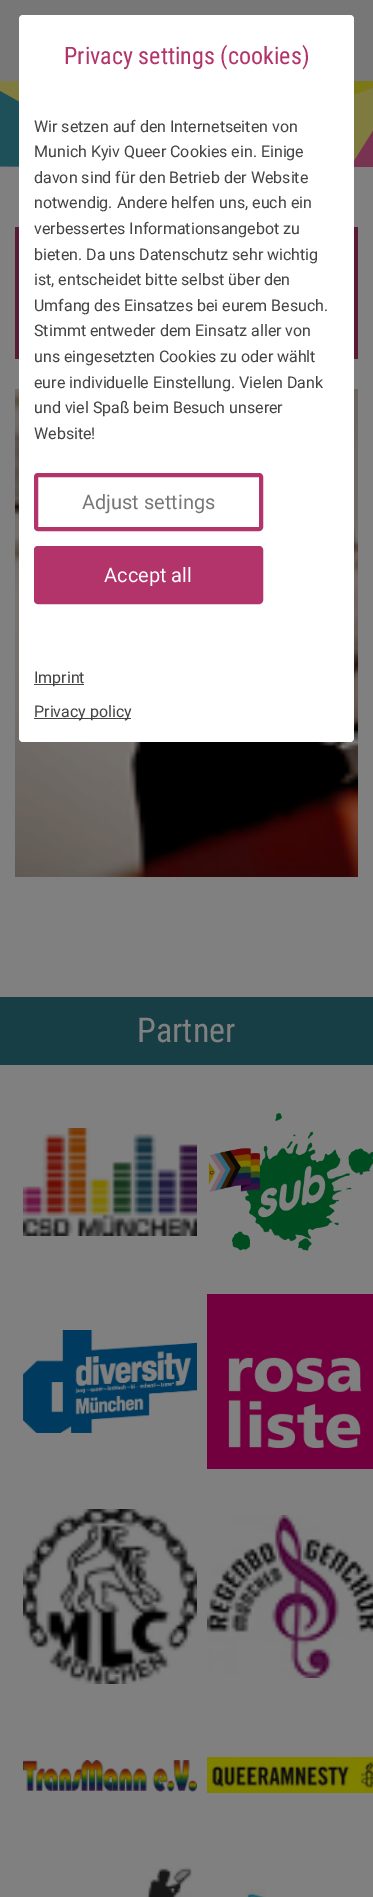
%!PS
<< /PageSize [373 1897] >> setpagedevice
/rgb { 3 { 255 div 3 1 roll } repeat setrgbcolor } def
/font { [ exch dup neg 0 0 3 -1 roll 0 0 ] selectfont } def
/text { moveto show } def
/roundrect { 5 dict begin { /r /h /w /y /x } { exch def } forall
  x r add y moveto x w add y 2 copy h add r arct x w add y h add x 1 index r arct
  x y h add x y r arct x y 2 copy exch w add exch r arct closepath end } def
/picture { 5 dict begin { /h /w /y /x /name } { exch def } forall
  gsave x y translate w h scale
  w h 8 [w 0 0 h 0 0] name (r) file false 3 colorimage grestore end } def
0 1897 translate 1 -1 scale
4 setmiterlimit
128 128 128 rgb
0 0 373 1897 rectfill
119 119 119 rgb
0 0 373 167 rectfill
(img_01.rgb) 0 81 373 86 picture
89 26 54 rgb
15 227 343 132 rectfill
(img_02.rgb) 15 389 343 488 picture
255 255 255 rgb
19 15 335 727 4 roundrect fill
178 52 107 rgb
4 setlinewidth
36 475 225 54 2 roundrect stroke
36 548 225 54 2 roundrect gsave fill grestore
stroke
68 68 68 rgb
34 684 50 1 rectfill
34 718 97 1 rectfill
23 62 69 rgb
0 997 373 68 rectfill
(img_03.rgb) 23 1128 174 108 picture
(img_04.rgb) 208 1113 165 138 picture
(img_05.rgb) 23 1330 174 103 picture
(img_06.rgb) 207 1294 166 175 picture
(img_07.rgb) 23 1509 174 175 picture
(img_08.rgb) 207 1515 166 163 picture
(img_09.rgb) 23 1760 174 32 picture
(img_10.rgb) 207 1757 166 36 picture
(img_11.rgb) 146 1867 46 30 picture
(img_12.rgb) 246 1889 20 8 picture
/RobotoCondensed-Regular 24 font
178 52 107 rgb
(Privacy settings \(cookies\)) 64 64 text
/Roboto-Regular 16 font
68 68 68 rgb
(Wir setzen auf den Internetseiten von) 34 132 text
(Munich Kyiv Queer Cookies ein. Einige) 34 157 text
(davon sind für den Betrieb der Website) 34 183 text
(notwendig. Andere helfen uns, euch ein) 34 208 text
(verbessertes Informationsangebot zu) 34 234 text
(bieten. Da uns Datenschutz sehr wichtig) 34 260 text
(ist, entscheidet bitte selbst über den) 34 285 text
(Umfang des Einsatzes bei eurem Besuch.) 34 311 text
(Stimmt entweder dem Einsatz aller von) 34 336 text
(uns eingesetzten Cookies zu oder wählt) 34 362 text
(eure individuelle Einstellung. Vielen Dank) 34 388 text
(und viel Spaß beim Besuch unserer) 34 413 text
(Website!) 34 439 text
/Roboto-Regular 20 font
119 119 119 rgb
(Adjust settings) 82 509 text
255 255 255 rgb
(Accept all) 104 582 text
/Roboto-Regular 16 font
68 68 68 rgb
(Imprint) 34 683 text
(Privacy policy) 34 717 text
/RobotoCondensed-Regular 34 font
128 128 128 rgb
(Partner) 137 1042 text
showpage
